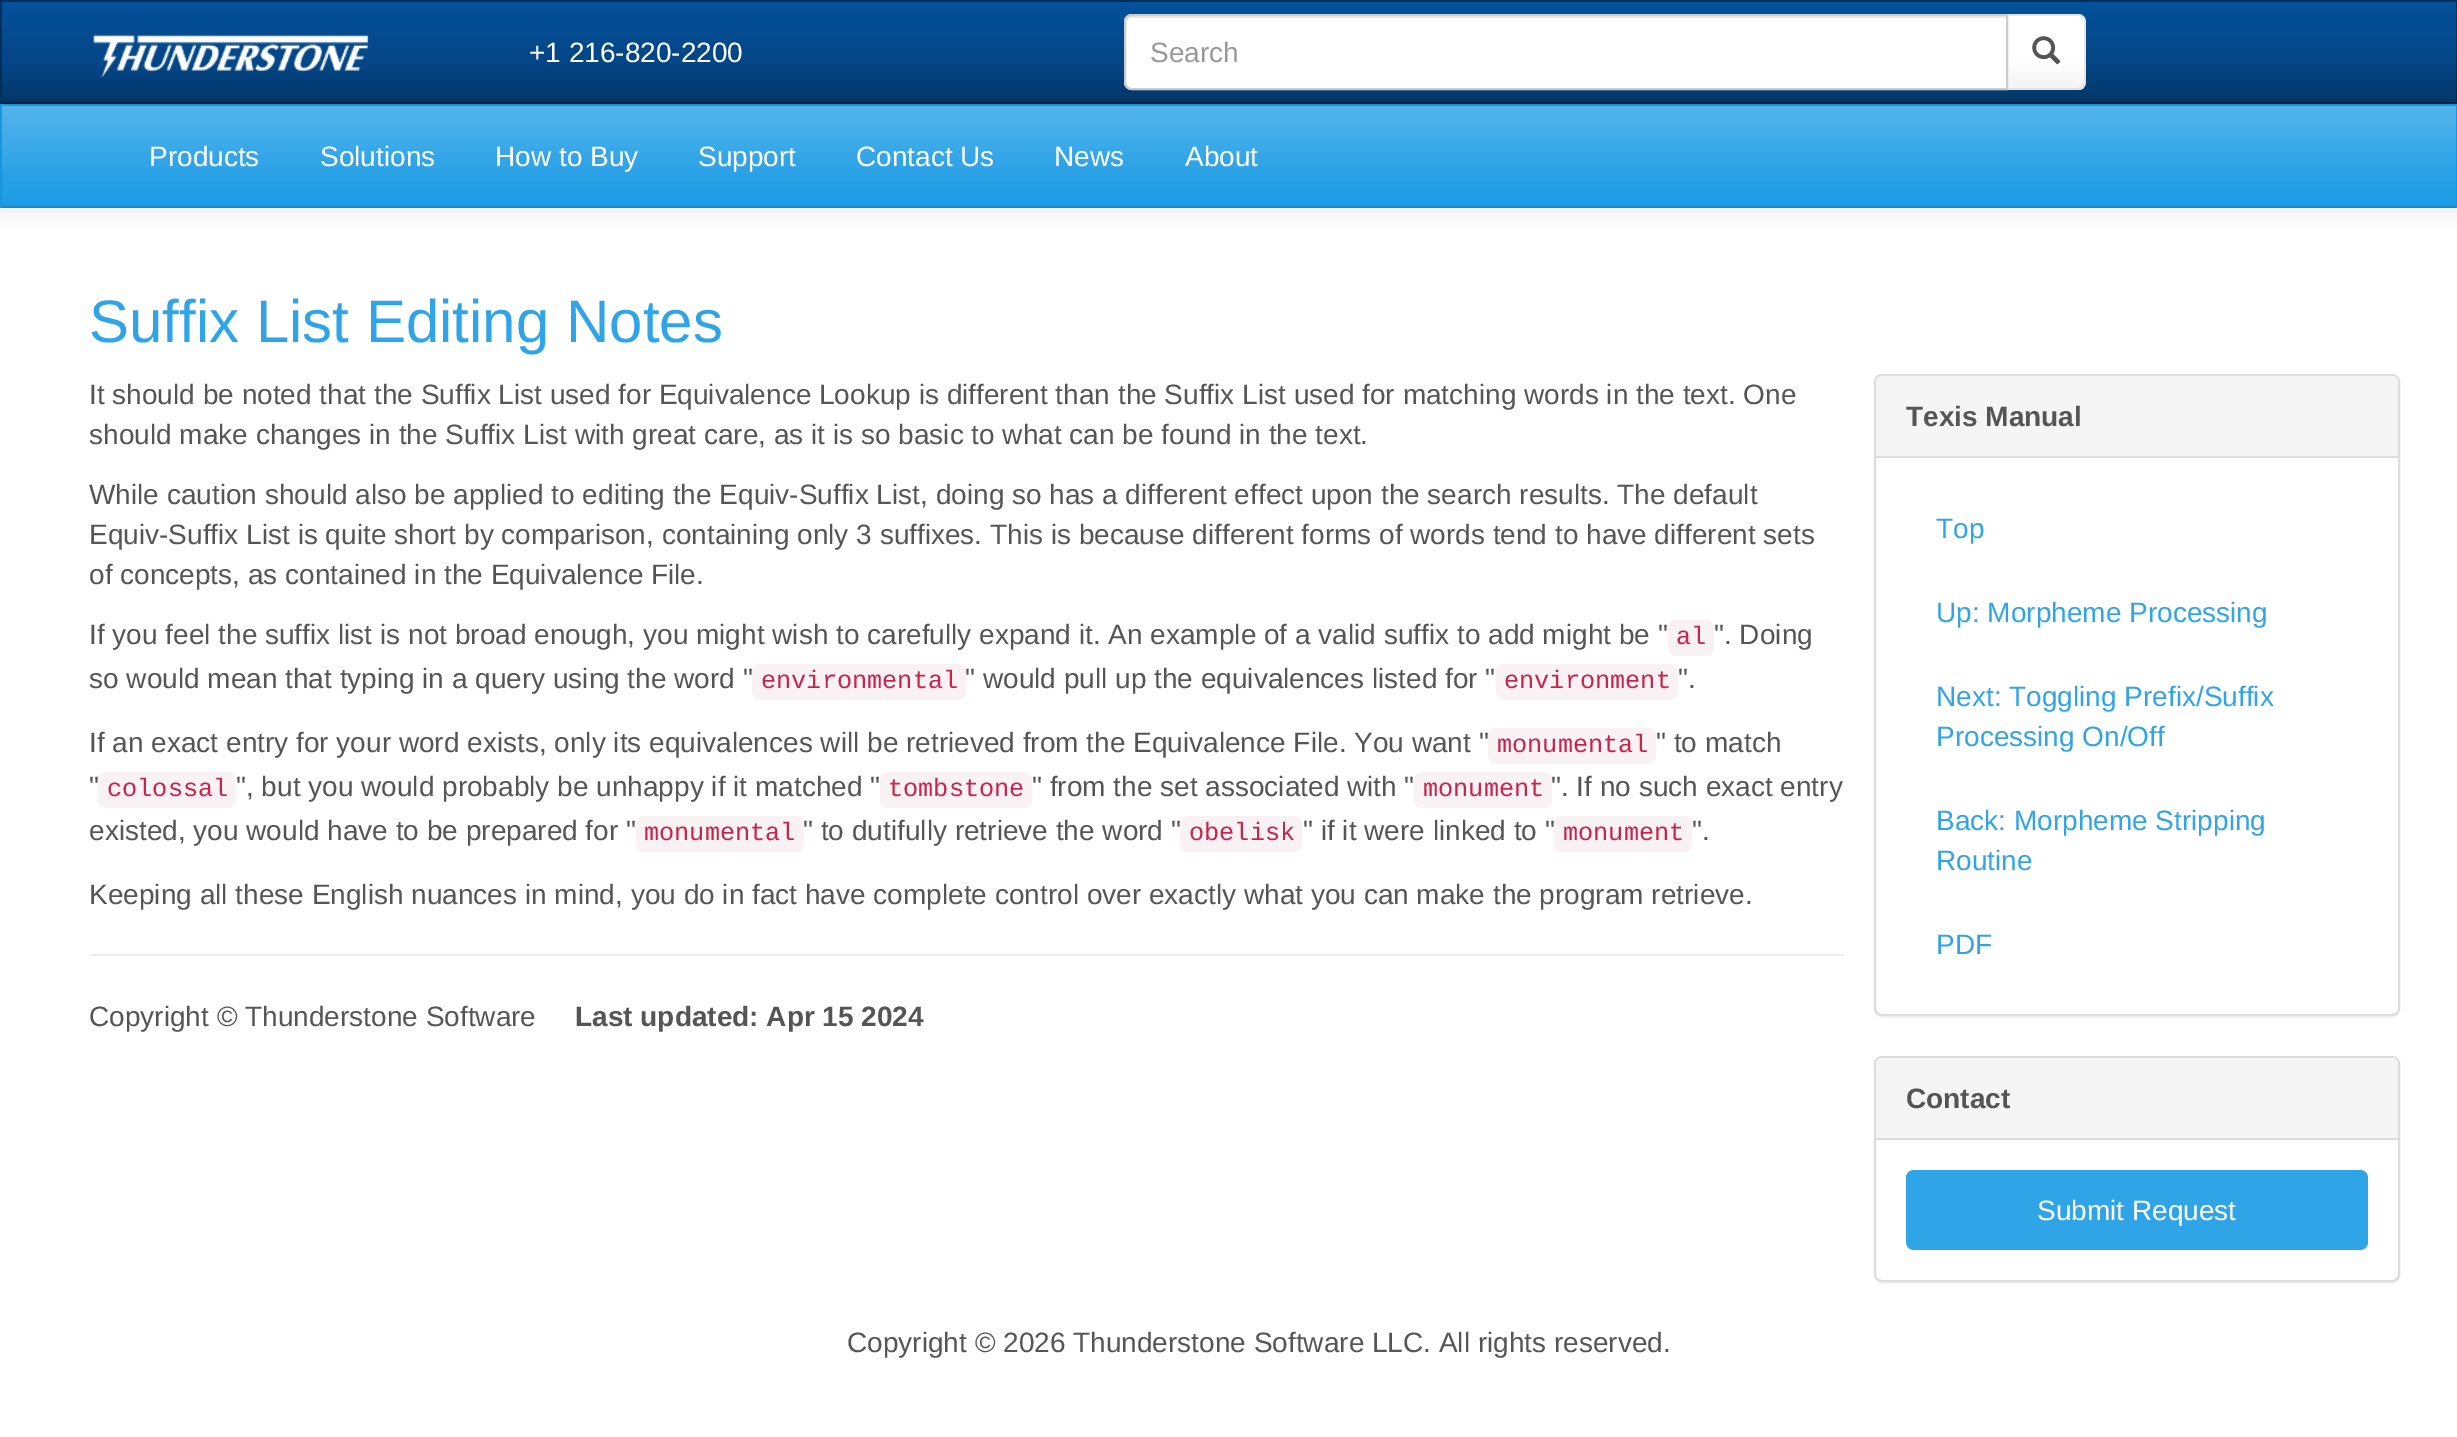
%!PS
<< /PageSize [2457 1437] /PageUsesTransparency true >> setpagedevice
/rgb { 3 { 255 div 3 1 roll } repeat setrgbcolor } def
/font { [ exch dup neg 0 0 3 -1 roll 0 0 ] selectfont } def
/text { moveto show } def
/alpha { dup .setfillconstantalpha .setstrokeconstantalpha } def
/roundrect { 5 dict begin { /r /h /w /y /x } { exch def } forall
  x r add y moveto x w add y 2 copy h add r arct x w add y h add x 1 index r arct
  x y h add x y r arct x y 2 copy exch w add exch r arct closepath end } def
/shadow { 12 dict begin { /a /b /q /h /w /y /x } { exch def } forall gsave /was 0 def
  9 -2 -9 { dup b mul 4 div /e exch def 1 sub .425 mul 2.718 exch exp 1 add a .99 .min exch div /now exch def
    1 1 now sub 1 was sub div sub alpha /was now def
    w h .min e 2 mul add 0 gt { x e sub y e sub w e 2 mul add h e 2 mul add
      q e add b .6 mul add w h .min 2 div e add .min 0 .max roundrect fill } if } for grestore end } def
/picture { 5 dict begin { /h /w /y /x /name } { exch def } forall
  gsave x y translate w h scale
  w h 8 [w 0 0 h 0 0] name (r) file false 3 colorimage grestore end } def
0 .pushpdf14devicefilter
0 1437 translate 1 -1 scale
4 setmiterlimit
255 255 255 rgb
0 0 2457 1437 rectfill
gsave 2 2 moveto 2454 0 rlineto 0 100 rlineto -2454 0 rlineto closepath clip newpath
<< /ShadingType 2 /ColorSpace /DeviceRGB /Coords [1229 2 1229 102] /Extend [true true] /Function << /FunctionType 3 /Domain [0 1] /Functions [<< /FunctionType 2 /Domain [0 1] /C0 [0.016 0.318 0.608] /C1 [0.016 0.275 0.529] /N 1 >> << /FunctionType 2 /Domain [0 1] /C0 [0.016 0.275 0.529] /C1 [0.012 0.216 0.412] /N 1 >>] /Bounds [0.6] /Encode [0 1 0 1] >> >> shfill grestore
2 47 90 rgb
0 0 2457 2 rectfill
2456 0 1 104 rectfill
2 34 65 rgb
0 102 2457 2 rectfill
2 47 90 rgb
0 0 2 104 rectfill
(img_01.rgb) 93 34 276 44 picture
255 255 255 rgb
2006 14 moveto 72 0 rlineto 4.5 0 8 3.5 8 8 rcurveto 0 60 rlineto 0 4.5 -3.5 8 -8 8 rcurveto -72 0 rlineto closepath fill
gsave 2008 16 moveto 76 0 rlineto 0 72 rlineto -76 0 rlineto closepath clip newpath
<< /ShadingType 2 /ColorSpace /DeviceRGB /Coords [2046 16 2046 88] /Extend [true true] /Function << /FunctionType 3 /Domain [0 1] /Functions [<< /FunctionType 2 /Domain [0 1] /C0 [1 1 1] /C1 [1 1 1] /N 1 >> << /FunctionType 2 /Domain [0 1] /C0 [1 1 1] /C1 [0.961 0.961 0.961] /N 1 >>] /Bounds [0.6] /Encode [0 1 0 1] >> >> shfill grestore
0.1 alpha
0 0 0 rgb
2006 14 moveto 2 2 rlineto 71 0 rlineto 3 2 rlineto 2 -2 rlineto -2 -1 -4 -2 -6 -2 rcurveto closepath fill
2086 82 moveto 0 -60 rlineto 0 -2 -1 -4 -2 -6 rcurveto -2 2 rlineto 1 1 2 2 2 4 rcurveto 0 60 rlineto 0 2 -1 3 -2 4 rcurveto 2 2 rlineto 1 -2 2 -4 2 -6 rcurveto closepath fill
1 alpha
230 230 230 rgb
2078 90 moveto 2 0 4 -1 6 -2 rcurveto -2 -2 rlineto -3 2 rlineto -71 0 rlineto -2 2 rlineto closepath fill
0 0 0 rgb
0 106 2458 104 0 10 0.1 shadow
255 255 255 rgb
1132 14 moveto 876 0 rlineto 0 76 rlineto -876 0 rlineto -4.5 0 -8 -3.5 -8 -8 rcurveto 0 -60 rlineto 0 -4.5 3.5 -8 8 -8 rcurveto closepath fill
236 236 236 rgb
1132 18 moveto 874 0 rlineto 0 -2 rlineto -874 0 rlineto -5 0 -6 4 -6 8 rcurveto 0 -3 3 -6 6 -6 rcurveto closepath fill
204 204 204 rgb
2 setlinewidth
1132 15 moveto 875 0 rlineto 0 74 rlineto -875 0 rlineto -4 0 -7 -3 -7 -7 rcurveto 0 -60 rlineto 0 -4 3 -7 7 -7 rcurveto closepath stroke
(img_02.rgb) 2032 36 29 29 picture
gsave 2 106 moveto 2454 0 rlineto 0 100 rlineto -2454 0 rlineto closepath clip newpath
<< /ShadingType 2 /ColorSpace /DeviceRGB /Coords [1229 106 1229 206] /Extend [true true] /Function << /FunctionType 3 /Domain [0 1] /Functions [<< /FunctionType 2 /Domain [0 1] /C0 [0.329 0.706 0.922] /C1 [0.184 0.643 0.906] /N 1 >> << /FunctionType 2 /Domain [0 1] /C0 [0.184 0.643 0.906] /C1 [0.114 0.612 0.898] /N 1 >>] /Bounds [0.6] /Encode [0 1 0 1] >> >> shfill grestore
25 149 220 rgb
0 104 2457 2 rectfill
2456 104 1 104 rectfill
23 138 204 rgb
0 206 2457 2 rectfill
25 149 220 rgb
0 104 2 104 rectfill
249 242 244 rgb
1668 620 46 36 8 roundrect fill
752 664 214 36 8 roundrect fill
1496 664 182 36 8 roundrect fill
1488 728 168 36 8 roundrect fill
98 772 138 36 8 roundrect fill
880 772 152 36 8 roundrect fill
1414 772 138 36 8 roundrect fill
636 816 168 36 8 roundrect fill
1180 816 122 36 8 roundrect fill
1554 816 138 36 8 roundrect fill
238 238 238 rgb
90 954 1754 2 rectfill
0 0 0 rgb
1874 376 526 642 8 1 0.05 shadow
255 255 255 rgb
1875 375 524 640 7 roundrect gsave fill grestore
221 221 221 rgb
stroke
245 245 245 rgb
1882 376 moveto 510 0 rlineto 3.5 0 6 2.5 6 6 rcurveto 0 76 rlineto -522 0 rlineto 0 -76 rlineto 0 -3.5 2.5 -6 6 -6 rcurveto closepath fill
221 221 221 rgb
1876 456 522 2 rectfill
0 0 0 rgb
1874 1058 526 226 8 1 0.05 shadow
255 255 255 rgb
1875 1057 524 224 7 roundrect gsave fill grestore
221 221 221 rgb
stroke
245 245 245 rgb
1882 1058 moveto 510 0 rlineto 3.5 0 6 2.5 6 6 rcurveto 0 76 rlineto -522 0 rlineto 0 -76 rlineto 0 -3.5 2.5 -6 6 -6 rcurveto closepath fill
221 221 221 rgb
1876 1138 522 2 rectfill
47 164 231 rgb
1906 1170 462 80 8 roundrect fill
/LiberationSans-Regular 28 font
255 255 255 rgb
(+1 216-820-2200) 529 62 text
153 153 153 rgb
(Search) 1150 62 text
255 255 255 rgb
(Products) 149 166 text
(Solutions) 320 166 text
(How to Buy) 495 166 text
(Support) 698 166 text
(Contact Us) 856 166 text
(News) 1054 166 text
(About) 1185 166 text
/LiberationSans-Regular 60 font
47 164 231 rgb
(Suffix List Editing Notes) 89 342 text
/LiberationSans-Regular 28 font
85 85 85 rgb
(It should be noted that the Suffix List used for Equivalence Lookup is different than the Suffix List used for matching words in the text. One) 89 404 text
(should make changes in the Suffix List with great care, as it is so basic to what can be found in the text.) 89 444 text
(While caution should also be applied to editing the Equiv-Suffix List, doing so has a different effect upon the search results. The default) 89 504 text
(Equiv-Suffix List is quite short by comparison, containing only 3 suffixes. This is because different forms of words tend to have different sets) 89 544 text
(of concepts, as contained in the Equivalence File.) 89 584 text
(If you feel the suffix list is not broad enough, you might wish to carefully expand it. An example of a valid suffix to add might be ") 89 644 text
/LiberationMono-Regular 25.25 font
199 37 78 rgb
(al) 1676 644 text
/LiberationSans-Regular 28 font
85 85 85 rgb
(". Doing) 1714 644 text
(so would mean that typing in a query using the word ") 89 688 text
/LiberationMono-Regular 25.25 font
199 37 78 rgb
(environmental) 761 688 text
/LiberationSans-Regular 28 font
85 85 85 rgb
(" would pull up the equivalences listed for ") 965 688 text
/LiberationMono-Regular 25.25 font
199 37 78 rgb
(environment) 1504 688 text
/LiberationSans-Regular 28 font
85 85 85 rgb
(".) 1678 688 text
(If an exact entry for your word exists, only its equivalences will be retrieved from the Equivalence File. You want ") 89 752 text
/LiberationMono-Regular 25.25 font
199 37 78 rgb
(monumental) 1497 752 text
/LiberationSans-Regular 28 font
85 85 85 rgb
(" to match) 1656 752 text
(") 89 796 text
/LiberationMono-Regular 25.25 font
199 37 78 rgb
(colossal) 107 796 text
/LiberationSans-Regular 28 font
85 85 85 rgb
(", but you would probably be unhappy if it matched ") 236 796 text
/LiberationMono-Regular 25.25 font
199 37 78 rgb
(tombstone) 888 796 text
/LiberationSans-Regular 28 font
85 85 85 rgb
(" from the set associated with ") 1032 796 text
/LiberationMono-Regular 25.25 font
199 37 78 rgb
(monument) 1423 796 text
/LiberationSans-Regular 28 font
85 85 85 rgb
(". If no such exact entry) 1551 796 text
(existed, you would have to be prepared for ") 89 840 text
/LiberationMono-Regular 25.25 font
199 37 78 rgb
(monumental) 644 840 text
/LiberationSans-Regular 28 font
85 85 85 rgb
(" to dutifully retrieve the word ") 803 840 text
/LiberationMono-Regular 25.25 font
199 37 78 rgb
(obelisk) 1189 840 text
/LiberationSans-Regular 28 font
85 85 85 rgb
(" if it were linked to ") 1303 840 text
/LiberationMono-Regular 25.25 font
199 37 78 rgb
(monument) 1563 840 text
/LiberationSans-Regular 28 font
85 85 85 rgb
(".) 1692 840 text
(Keeping all these English nuances in mind, you do in fact have complete control over exactly what you can make the program retrieve.) 89 904 text
(Copyright © Thunderstone Software) 89 1026 text
/LiberationSans-Bold 28 font
(Last updated: Apr 15 2024) 575 1026 text
(Texis Manual) 1906 426 text
/LiberationSans-Regular 28 font
47 164 231 rgb
(Top) 1936 538 text
(Up: Morpheme Processing) 1936 622 text
(Next: Toggling Prefix/Suffix) 1936 706 text
(Processing On/Off) 1936 746 text
(Back: Morpheme Stripping) 1936 830 text
(Routine) 1936 870 text
(PDF) 1936 954 text
/LiberationSans-Bold 28 font
85 85 85 rgb
(Contact) 1906 1108 text
/LiberationSans-Regular 28 font
255 255 255 rgb
(Submit Request) 2037 1220 text
85 85 85 rgb
(Copyright © 2026 Thunderstone Software LLC. All rights reserved.) 847 1352 text
.poppdf14devicefilter showpage
